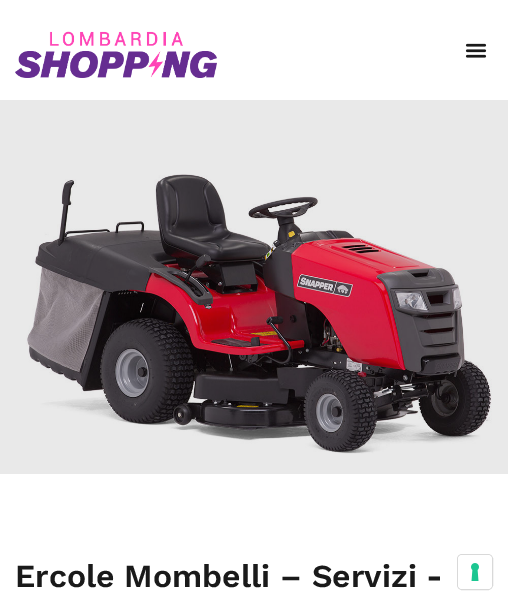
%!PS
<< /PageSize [508 605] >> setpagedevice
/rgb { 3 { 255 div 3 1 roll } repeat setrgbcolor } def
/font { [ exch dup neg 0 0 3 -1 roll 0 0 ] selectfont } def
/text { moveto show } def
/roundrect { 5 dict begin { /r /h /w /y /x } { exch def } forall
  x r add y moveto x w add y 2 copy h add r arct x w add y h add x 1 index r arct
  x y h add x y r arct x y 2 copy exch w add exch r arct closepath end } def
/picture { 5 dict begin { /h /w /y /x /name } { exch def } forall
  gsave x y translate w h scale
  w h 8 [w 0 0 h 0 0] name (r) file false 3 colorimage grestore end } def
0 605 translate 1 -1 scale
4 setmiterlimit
255 255 255 rgb
0 0 508 605 rectfill
233 233 233 rgb
0 100 508 374 rectfill
(img_01.rgb) 15 31 202 47 picture
(img_02.rgb) 465 43 22 15 picture
(img_03.rgb) 26 174 466 280 picture
217 217 217 rgb
457.5 554.5 35 35 4.5 roundrect stroke
255 255 255 rgb
458 555 34 34 4 roundrect fill
(img_04.rgb) 471 563 8 18 picture
/WorkSans-SemiBold 32 font
26 26 26 rgb
(Ercole Mombelli – Servizi -) 15 587 text
showpage
